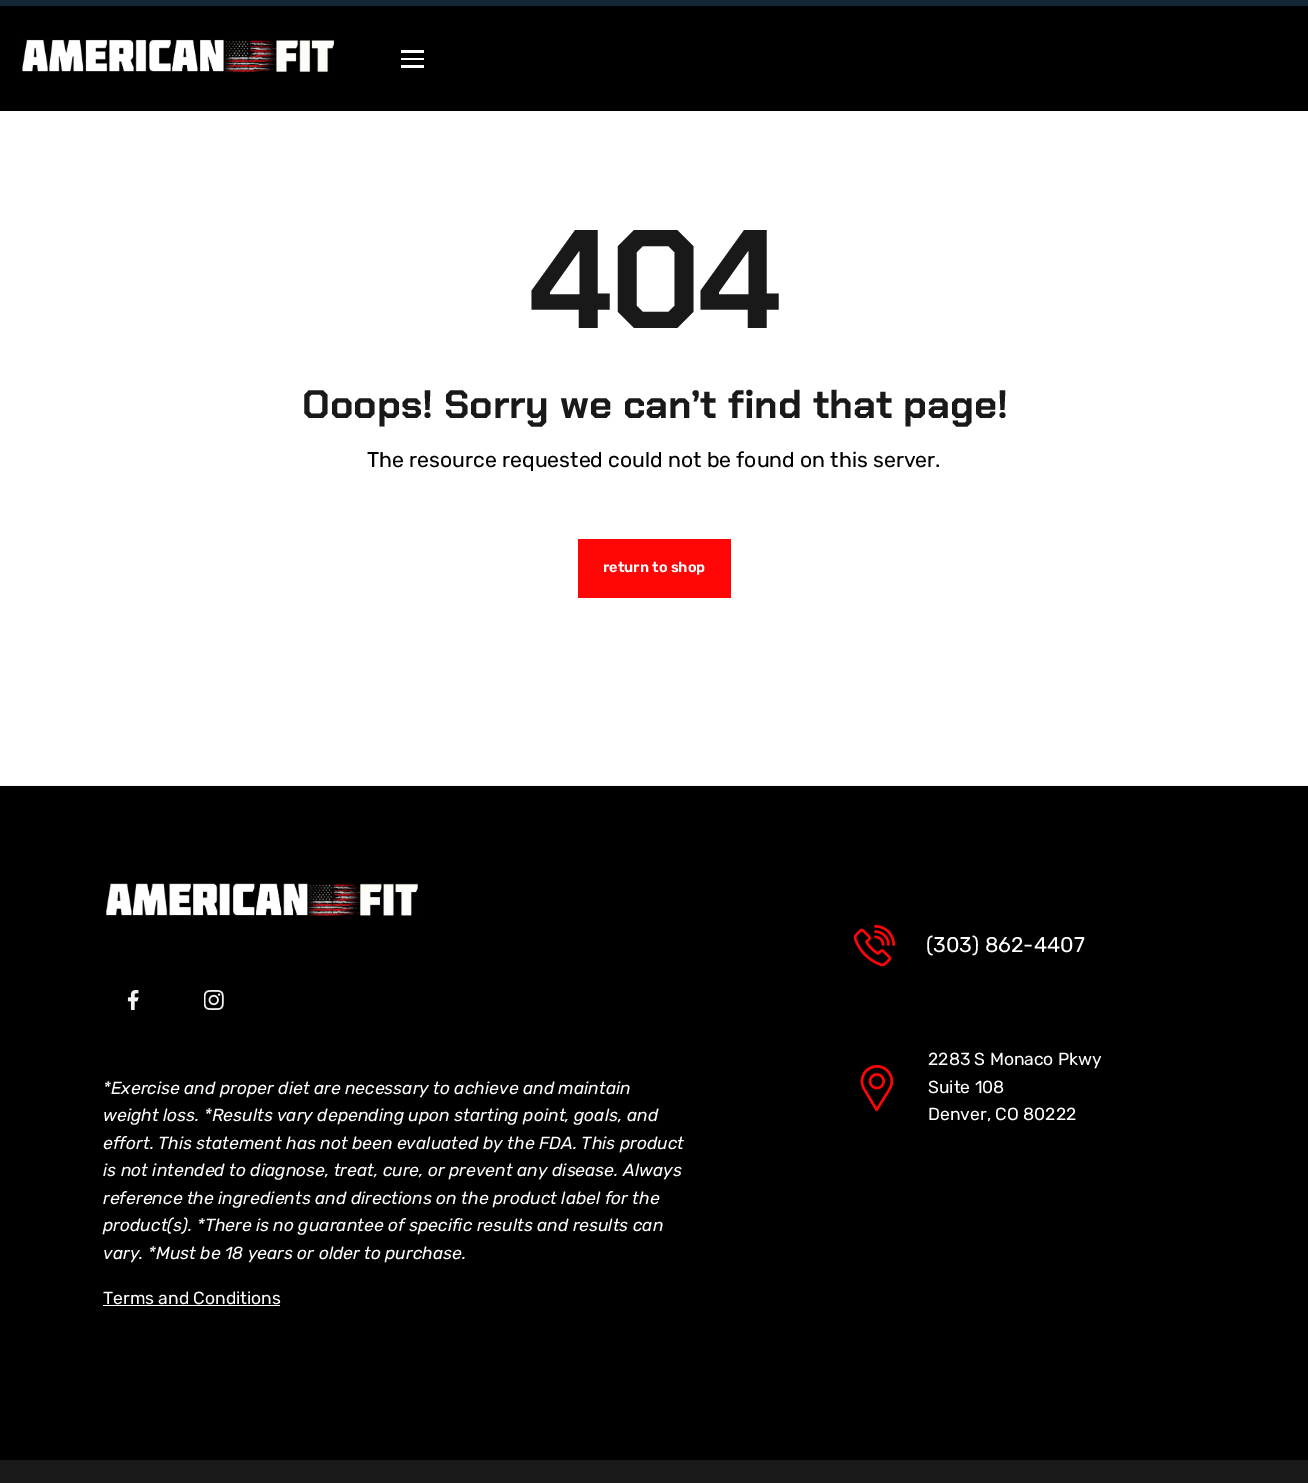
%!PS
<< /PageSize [1308 1483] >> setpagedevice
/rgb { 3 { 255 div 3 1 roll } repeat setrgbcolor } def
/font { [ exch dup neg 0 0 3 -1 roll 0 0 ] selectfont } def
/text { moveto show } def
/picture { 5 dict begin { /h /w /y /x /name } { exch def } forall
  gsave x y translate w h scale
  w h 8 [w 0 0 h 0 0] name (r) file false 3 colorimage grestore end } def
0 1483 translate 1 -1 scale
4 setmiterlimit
255 255 255 rgb
0 0 1308 1483 rectfill
19 38 53 rgb
0 0 1308 6 rectfill
0 0 0 rgb
0 6 1308 105 rectfill
(img_01.rgb) 22 39 313 34 picture
255 255 255 rgb
401 50 23 3 rectfill
401 58 23 2 rectfill
401 65 23 3 rectfill
255 5 5 rgb
578 539 153 59 rectfill
242 243 245 rgb
0 785 1308 1 rectfill
0 0 0 rgb
0 786 1308 674 rectfill
(img_02.rgb) 854 925 41 41 picture
(img_03.rgb) 860 1065 34 46 picture
(img_04.rgb) 106 883 313 34 picture
(img_05.rgb) 127 990 12 20 picture
(img_06.rgb) 204 990 20 20 picture
255 255 255 rgb
103 1305 177 1 rectfill
25 25 25 rgb
0 1460 1308 23 rectfill
/ChakraPetch-Bold 140 font
530 328 moveto -1.5 0 (404) ashow
/ChakraPetch-Bold 39.75 font
(Ooops! Sorry we can’t find that page!) 302 418 text
/Rubik-Regular 21.25 font
0 0 0 rgb
(The resource requested could not be found on this server.) 367 467 text
/Rubik-SemiBold 14.5 font
255 255 255 rgb
(return to shop) 603 572 text
/Rubik-Regular 21.25 font
(\(303\) 862-4407) 926 952 text
/Rubik-Regular 17.5 font
(2283 S Monaco Pkwy) 928 1065 text
(Suite 108) 928 1093 text
(Denver, CO 80222) 928 1120 text
/Rubik-Italic 17.5 font
(*Exercise and proper diet are necessary to achieve and maintain) 103 1094 text
(weight loss. *Results vary depending upon starting point, goals, and) 103 1121 text
(effort. This statement has not been evaluated by the FDA. This product) 103 1149 text
(is not intended to diagnose, treat, cure, or prevent any disease. Always) 103 1176 text
(reference the ingredients and directions on the product label for the) 103 1204 text
(product\(s\). *There is no guarantee of specific results and results can) 103 1231 text
(vary. *Must be 18 years or older to purchase.) 103 1259 text
/Rubik-Regular 17.5 font
(Terms and Conditions) 103 1304 text
showpage
